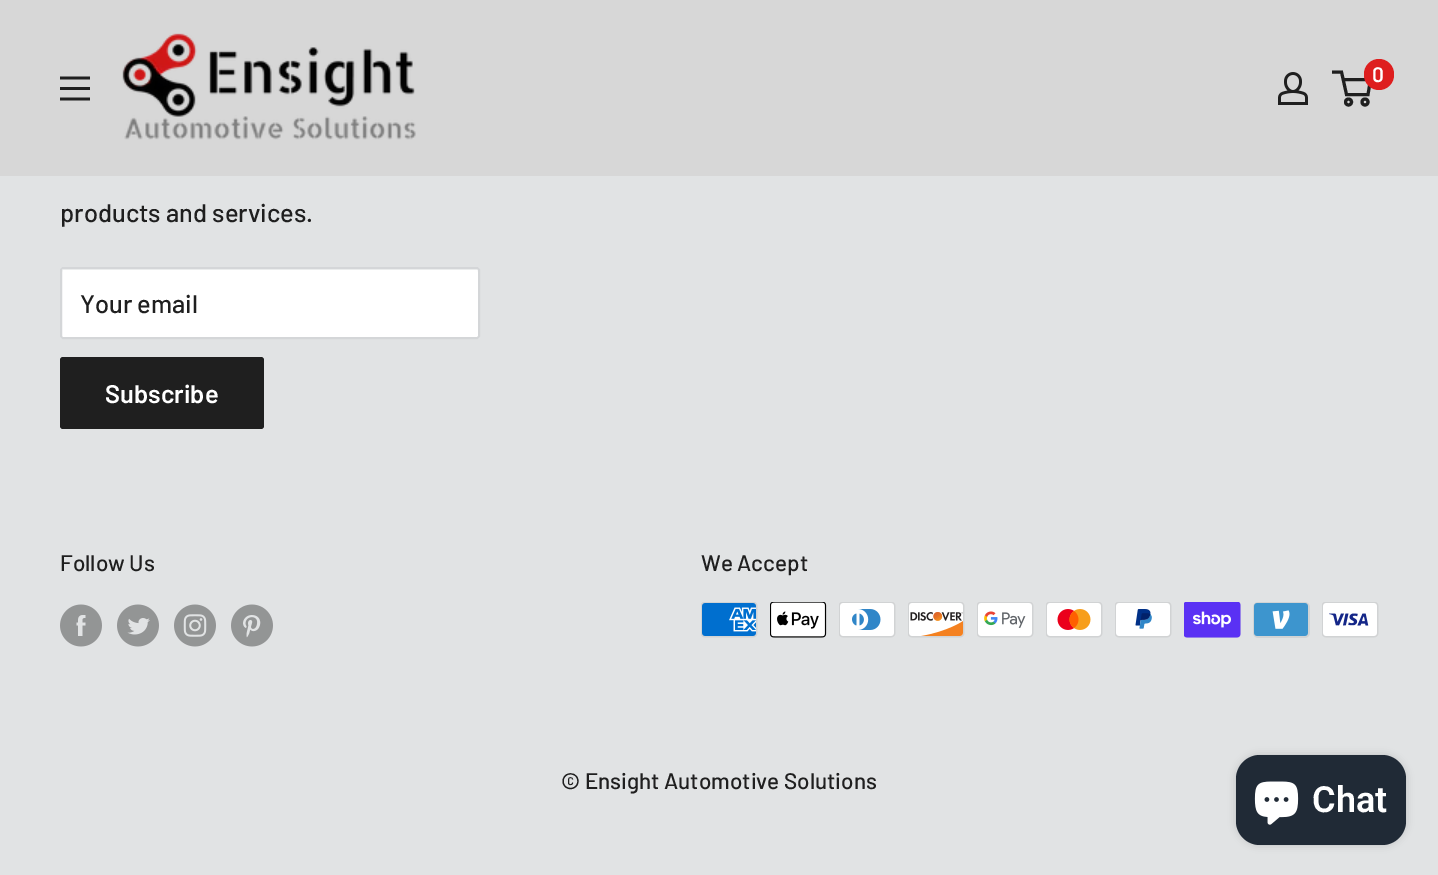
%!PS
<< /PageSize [1438 875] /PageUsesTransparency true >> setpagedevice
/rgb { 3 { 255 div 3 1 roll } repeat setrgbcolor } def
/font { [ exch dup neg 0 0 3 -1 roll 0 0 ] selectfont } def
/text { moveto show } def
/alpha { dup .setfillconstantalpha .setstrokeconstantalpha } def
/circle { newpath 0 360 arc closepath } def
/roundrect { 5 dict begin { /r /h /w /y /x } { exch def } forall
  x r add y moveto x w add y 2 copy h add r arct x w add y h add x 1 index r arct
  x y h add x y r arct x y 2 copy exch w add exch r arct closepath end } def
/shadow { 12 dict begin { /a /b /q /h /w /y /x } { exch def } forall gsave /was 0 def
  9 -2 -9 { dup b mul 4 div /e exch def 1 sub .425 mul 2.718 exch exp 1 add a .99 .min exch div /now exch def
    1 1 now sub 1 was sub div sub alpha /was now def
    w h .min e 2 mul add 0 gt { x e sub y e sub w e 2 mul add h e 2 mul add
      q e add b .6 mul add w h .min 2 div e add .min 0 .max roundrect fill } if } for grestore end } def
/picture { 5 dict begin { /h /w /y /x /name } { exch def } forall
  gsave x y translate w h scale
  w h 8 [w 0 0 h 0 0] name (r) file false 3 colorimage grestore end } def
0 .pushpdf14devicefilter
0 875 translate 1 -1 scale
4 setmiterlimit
225 227 228 rgb
0 0 1438 875 rectfill
215 215 215 rgb
0 0 1438 176 rectfill
(img_01.rgb) 60 76 30 25 picture
(img_02.rgb) 122 33 294 107 picture
(img_03.rgb) 1278 72 30 33 picture
31 31 31 rgb
3 setlinewidth
1348.5 102 3 circle stroke
1365 102 3 circle stroke
1343 79.5 moveto 27.5 0 rlineto -2.5 15 rlineto -21.5 0 rlineto -5 -22.5 rlineto -9.5 0 rlineto stroke
222 30 30 rgb
1364 59 30 31 15 roundrect fill
255 255 255 rgb
60 267 420 72 3 roundrect fill
244 245 245 rgb
63 270 moveto 414 0 rlineto 1 0 1 1 1 2 rcurveto 0 66 rlineto 1 -1 rlineto 0 -67 rlineto 0 0 -1 -1 -1 -1 rcurveto -415 0 rlineto -1 3 rlineto 0 -1 0 -2 1 -2 rcurveto closepath fill
212 214 216 rgb
2 setlinewidth
61 268 418 70 2 roundrect stroke
31 31 31 rgb
60 357 204 72 3 roundrect fill
(img_04.rgb) 60 604 42 43 picture
(img_05.rgb) 117 604 42 43 picture
(img_06.rgb) 174 604 42 43 picture
(img_07.rgb) 231 604 42 43 picture
(img_08.rgb) 701 602 57 36 picture
(img_09.rgb) 770 602 57 36 picture
(img_10.rgb) 839 602 57 36 picture
(img_11.rgb) 908 602 57 36 picture
(img_12.rgb) 977 602 57 36 picture
(img_13.rgb) 1046 602 57 36 picture
(img_14.rgb) 1115 602 57 36 picture
(img_15.rgb) 1184 602 57 36 picture
(img_16.rgb) 1253 602 57 36 picture
(img_17.rgb) 1322 602 57 36 picture
0 0 0 rgb
1236 755 170 90 24 4 0.15 shadow
32 42 54 rgb
1236 755 170 90 24 roundrect fill
(img_18.rgb) 1254 781 45 44 picture
/Barlow-SemiBold 21 font
255 255 255 rgb
(0) 1372 82 text
/Barlow-Medium 25.5 font
31 31 31 rgb
(products and services.) 60 222 text
(Your email) 80 313 text
/Barlow-SemiBold 25.5 font
255 255 255 rgb
(Subscribe) 105 403 text
/Barlow-Medium 22.5 font
31 31 31 rgb
(Follow Us) 60 571 text
(We Accept) 701 571 text
(© Ensight Automotive Solutions) 561 789 text
/Roboto-SemiBold 36 font
255 255 255 rgb
(Chat) 1312 812 text
.poppdf14devicefilter showpage
